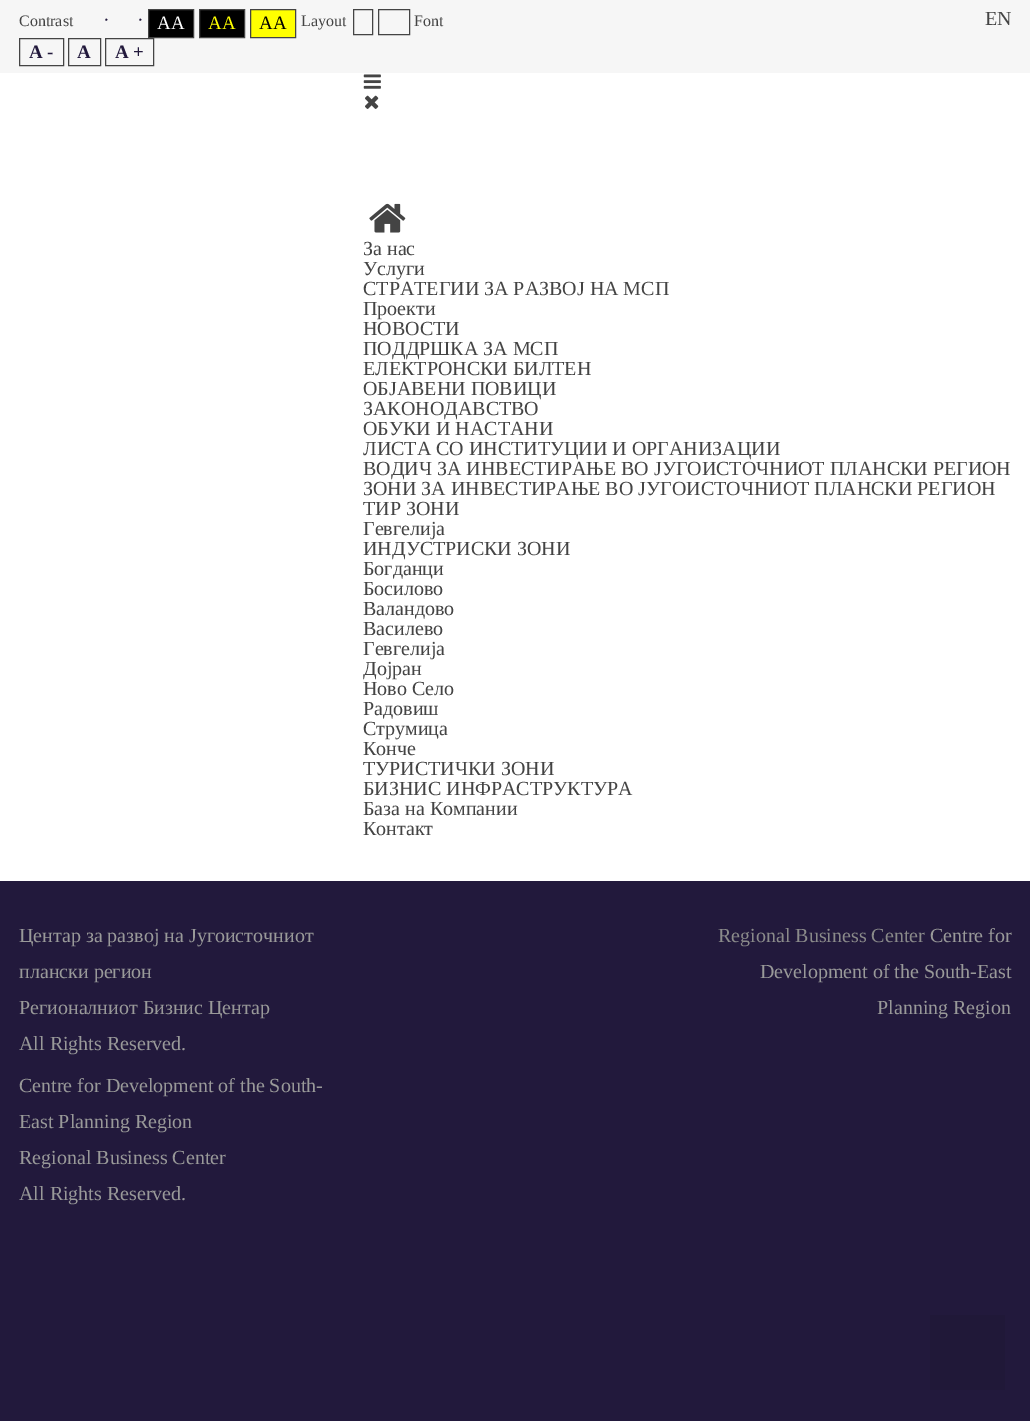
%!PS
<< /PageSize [1030 1421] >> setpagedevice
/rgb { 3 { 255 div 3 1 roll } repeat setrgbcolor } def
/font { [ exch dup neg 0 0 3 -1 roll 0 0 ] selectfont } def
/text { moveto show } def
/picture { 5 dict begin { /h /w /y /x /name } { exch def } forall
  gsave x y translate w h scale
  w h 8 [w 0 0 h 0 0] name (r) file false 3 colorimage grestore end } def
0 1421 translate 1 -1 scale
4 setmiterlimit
34 25 60 rgb
0 0 1030 1421 rectfill
255 255 255 rgb
0 73 1030 808 rectfill
246 246 246 rgb
0 0 1030 73 rectfill
0 0 0 rgb
148.5 9.5 moveto 45 0 rlineto 0 28 rlineto -45 0 rlineto closepath gsave fill grestore
68 68 68 rgb
stroke
0 0 0 rgb
199.5 9.5 moveto 45 0 rlineto 0 28 rlineto -45 0 rlineto closepath gsave fill grestore
68 68 68 rgb
stroke
255 255 0 rgb
250.5 9.5 moveto 45 0 rlineto 0 28 rlineto -45 0 rlineto closepath gsave fill grestore
68 68 68 rgb
stroke
353.5 9.5 19 25 rectstroke
378.5 9.5 31 25 rectstroke
19.5 38.5 44 27 rectstroke
68.5 38.5 32 27 rectstroke
105.5 38.5 48 27 rectstroke
(img_01.rgb) 363 74 18 15 picture
(img_02.rgb) 365 95 14 14 picture
(img_03.rgb) 369 203 37 30 picture
32 24 56 rgb
930 1315 75 75 rectfill
/LiberationSerif-Regular 16 font
68 68 68 rgb
(Contrast) 19 26 text
/LiberationSerif-Regular 19 font
34 25 60 rgb
(∙) 104 26 text
(∙) 138 26 text
255 255 255 rgb
(AA) 157 29 text
255 255 0 rgb
(AA) 208 29 text
0 0 0 rgb
(AA) 259 29 text
/LiberationSerif-Regular 16 font
68 68 68 rgb
(Layout) 301 26 text
(Font) 414 26 text
/LiberationSerif-Bold 19 font
34 25 60 rgb
(A -) 29 58 text
(A) 77 58 text
(A +) 115 58 text
/LiberationSerif-Regular 20 font
68 68 68 rgb
(EN) 985 25 text
(За нас) 363 255 text
(Услуги) 363 275 text
(СТРАТЕГИИ ЗА РАЗВОЈ НА МСП) 363 295 text
(Проекти) 363 315 text
(НОВОСТИ) 363 335 text
(ПОДДРШКА ЗА МСП) 363 355 text
(ЕЛЕКТРОНСКИ БИЛТЕН) 363 375 text
(ОБЈАВЕНИ ПОВИЦИ) 363 395 text
(ЗАКОНОДАВСТВО) 363 415 text
(ОБУКИ И НАСТАНИ) 363 435 text
(ЛИСТА СО ИНСТИТУЦИИ И ОРГАНИЗАЦИИ) 363 455 text
(ВОДИЧ ЗА ИНВЕСТИРАЊЕ ВО ЈУГОИСТОЧНИОТ ПЛАНСКИ РЕГИОН) 363 475 text
(ЗОНИ ЗА ИНВЕСТИРАЊЕ ВО ЈУГОИСТОЧНИОТ ПЛАНСКИ РЕГИОН) 363 495 text
(ТИР ЗОНИ) 363 515 text
(Гевгелија) 363 535 text
(ИНДУСТРИСКИ ЗОНИ) 363 555 text
(Богданци) 363 575 text
(Босилово) 363 595 text
(Валандово) 363 615 text
(Василево) 363 635 text
(Гевгелија) 363 655 text
(Дојран) 363 675 text
(Ново Село) 363 695 text
(Радовиш) 363 715 text
(Струмица) 363 735 text
(Конче) 363 755 text
(ТУРИСТИЧКИ ЗОНИ) 363 775 text
(БИЗНИС ИНФРАСТРУКТУРА) 363 795 text
(База на Компании) 363 815 text
(Контакт) 363 835 text
153 153 153 rgb
(Центар за развој на Југоисточниот) 19 942 text
(плански регион) 19 978 text
(Регионалниот Бизнис Центар) 19 1014 text
(All Rights Reserved.) 19 1050 text
(Centre for Development of the South-) 19 1092 text
(East Planning Region) 19 1128 text
(Regional Business Center) 19 1164 text
(All Rights Reserved.) 19 1200 text
138 138 138 rgb
(Regional Business Center) 718 942 text
153 153 153 rgb
(Centre for) 930 942 text
(Development of the South-East) 760 978 text
(Planning Region) 877 1014 text
showpage
